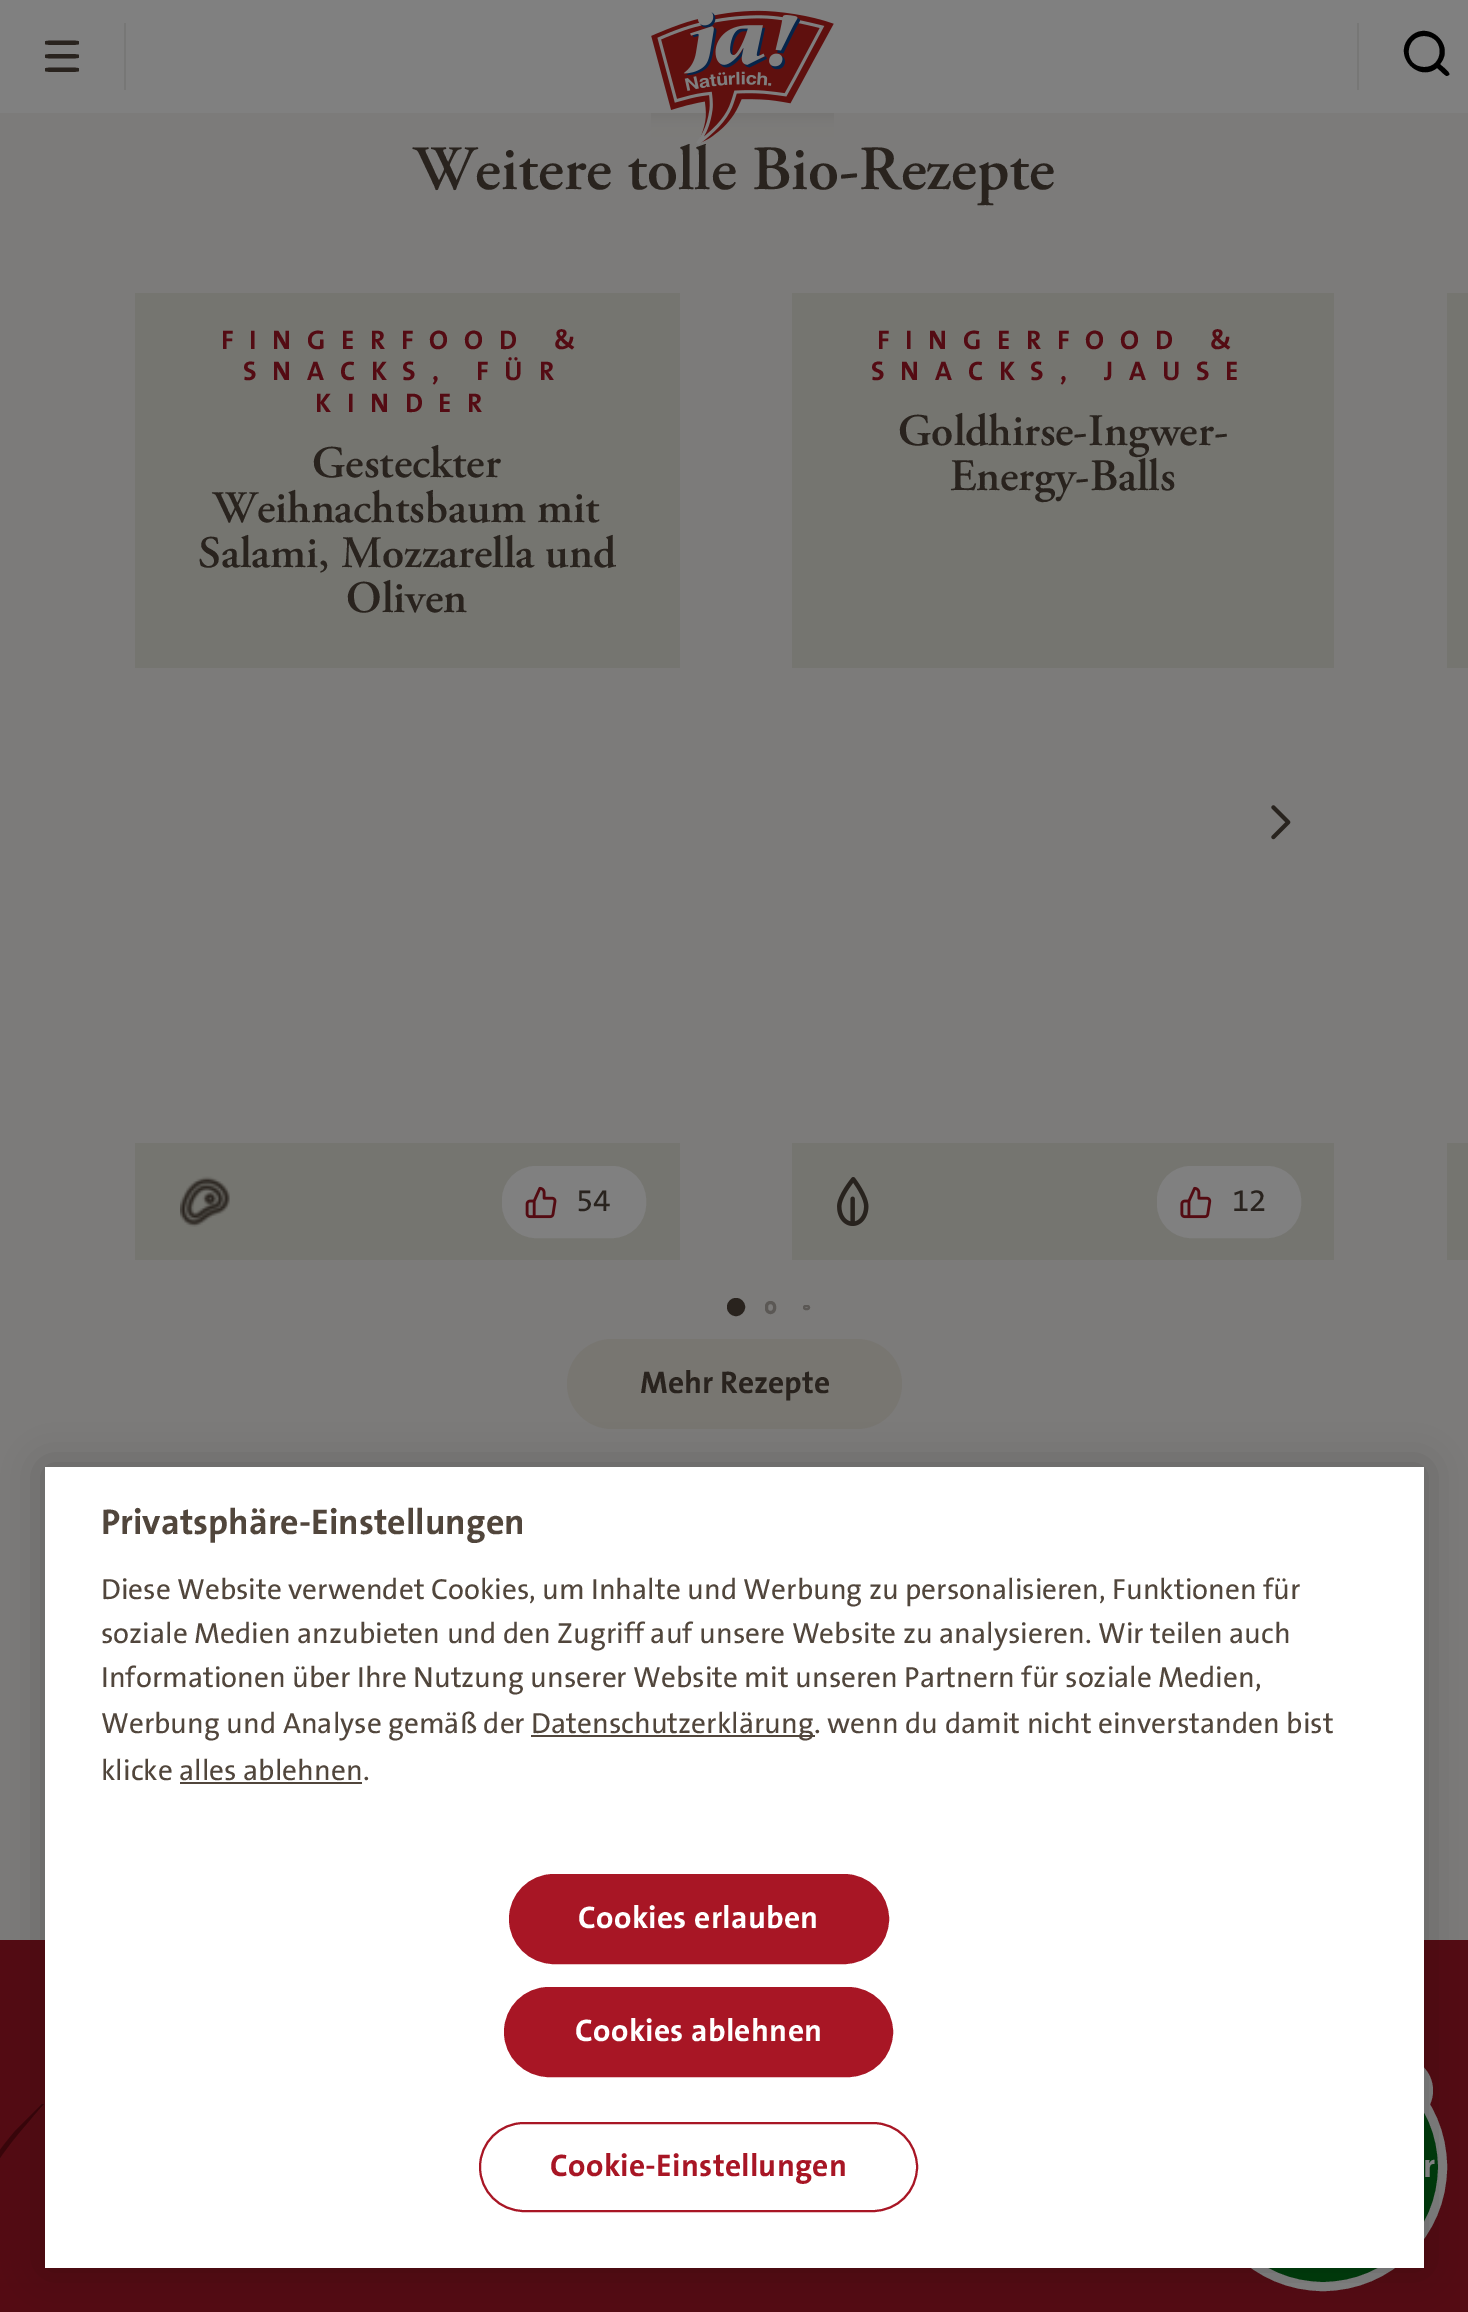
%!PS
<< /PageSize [1468 2312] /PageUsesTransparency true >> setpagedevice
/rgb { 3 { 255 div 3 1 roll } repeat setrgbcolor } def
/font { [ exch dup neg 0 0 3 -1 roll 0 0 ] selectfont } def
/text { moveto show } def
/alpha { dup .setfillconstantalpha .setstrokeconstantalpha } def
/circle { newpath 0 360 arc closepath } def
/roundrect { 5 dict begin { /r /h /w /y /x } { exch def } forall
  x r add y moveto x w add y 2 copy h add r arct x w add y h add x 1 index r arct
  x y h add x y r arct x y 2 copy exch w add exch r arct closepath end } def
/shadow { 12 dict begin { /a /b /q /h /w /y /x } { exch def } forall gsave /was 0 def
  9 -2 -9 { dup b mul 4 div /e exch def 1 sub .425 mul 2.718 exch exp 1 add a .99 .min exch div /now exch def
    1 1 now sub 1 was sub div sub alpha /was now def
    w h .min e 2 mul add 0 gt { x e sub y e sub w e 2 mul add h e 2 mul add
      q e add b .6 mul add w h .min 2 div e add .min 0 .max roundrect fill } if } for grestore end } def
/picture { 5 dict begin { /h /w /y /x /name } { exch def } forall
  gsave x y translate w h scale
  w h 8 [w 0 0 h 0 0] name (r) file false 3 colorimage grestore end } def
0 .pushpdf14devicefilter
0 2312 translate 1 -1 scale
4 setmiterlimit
124 123 122 rgb
0 0 1468 2312 rectfill
128 128 128 rgb
0 0 1468 113 rectfill
119 119 118 rgb
124 23 2 67 rectfill
41 35 30 rgb
53.5 40.5 moveto 17 0 rlineto 4.5 0 8.5 0.5 8.5 1 rcurveto 0 2.5 rlineto 0 0.5 -4 1 -8.5 1 rcurveto -17 0 rlineto -4.5 0 -8.5 -0.5 -8.5 -1 rcurveto 0 -2.5 rlineto 0 -0.5 4 -1 8.5 -1 rcurveto closepath 53.5 54 moveto 17 0 rlineto 4.5 0 8.5 0.5 8.5 1 rcurveto 0 2.5 rlineto 0 0.5 -4 1 -8.5 1 rcurveto -17 0 rlineto -4.5 0 -8.5 -0.5 -8.5 -1 rcurveto 0 -2.5 rlineto 0 -0.5 4 -1 8.5 -1 rcurveto closepath 53.5 67.5 moveto 17 0 rlineto 4.5 0 8.5 0.5 8.5 1 rcurveto 0 2.5 rlineto 0 0.5 -4 1 -8.5 1 rcurveto -17 0 rlineto -4.5 0 -8.5 -0.5 -8.5 -1 rcurveto 0 -2.5 rlineto 0 -0.5 4 -1 8.5 -1 rcurveto closepath fill
119 119 118 rgb
1357 23 2 67 rectfill
0 0 0 rgb
1447 76 moveto -2 0 -8 -7 -10 -8 rcurveto -19 15 -45 -13 -27 -31 rcurveto 18 -18 46 8 30 27 rcurveto 2 2 rlineto 1 1 9 7 7 9 rcurveto closepath 1424 36 moveto -20 0 -21 31 0 31 rcurveto 20 1 22 -31 0 -31 rcurveto closepath fill
117 117 112 rgb
135 293 545 375 rectfill
135 1143 545 117 rectfill
(img_02.rgb) 180 1176 50 51 picture
128 128 128 rgb
504.5 1168.5 139 67 31.5 roundrect gsave fill grestore
5 setlinewidth
stroke
(img_03.rgb) 525 1186 32 33 picture
117 117 112 rgb
792 293 542 375 rectfill
792 1143 542 117 rectfill
(img_04.rgb) 837 1177 32 49 picture
128 128 128 rgb
1159.5 1168.5 139 67 31.5 roundrect gsave fill grestore
stroke
(img_05.rgb) 1180 1186 32 33 picture
117 117 112 rgb
1447 293 21 375 rectfill
1447 1143 21 117 rectfill
(img_06.rgb) 1271 805 20 35 picture
41 35 30 rgb
736 1307 6.5 circle gsave fill grestore
stroke
91 88 85 rgb
3 setlinewidth
766.5 1302.5 8 10 4 roundrect stroke
2 setlinewidth
804 1306 5 3 1.5 roundrect stroke
120 118 113 rgb
567 1339 335 90 45 roundrect fill
84 11 19 rgb
0 1940 1468 372 rectfill
56 5 10 rgb
42 2104 moveto -26 26 rlineto -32 37 -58 82 -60 132 rcurveto -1 13 -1 27 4 39 rcurveto 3 6 rlineto 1 0 rlineto -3 -12 rlineto -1 -5 -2 -11 -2 -17 rcurveto -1 -11 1 -22 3 -33 rcurveto 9 -46 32 -83 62 -118 rcurveto 7 -8 13 -16 20 -23 rcurveto closepath fill
0 59 11 rgb
1323 2167 119.5 circle gsave fill grestore
128 128 128 rgb
9 setlinewidth
stroke
1399.5 2090.5 33.5 circle fill
0 0 0 rgb
45 1467 1379 801 0 20 0.2 shadow
255 255 255 rgb
45 1467 1379 801 rectfill
81 70 60 rgb
531 1735 284 2 rectfill
180 1782 182 2 rectfill
168 22 37 rgb
510 1875 378 88 44 roundrect gsave fill grestore
2 setlinewidth
stroke
505 1988 387 88 44 roundrect gsave fill grestore
stroke
480 2123 437 88 44 roundrect stroke
/AdobeGaramond-SemiBold 63 font
41 35 30 rgb
(Weitere tolle Bio-Rezepte) 414 189 text
(img_01.rgb) 651 10 183 135 picture
/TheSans-Bold 27 font
84 11 19 rgb
221 349 moveto 15.75 0 (FINGERFOOD &) ashow
243 380 moveto 15.75 0 (SNACKS, FÜR) ashow
315 412 moveto 15.75 0 (KINDER) ashow
/AdobeGaramond-SemiBold 45 font
41 35 30 rgb
(Gesteckter) 312 477 text
(Weihnachtsbaum mit) 213 522 text
(Salami, Mozzarella und) 198 567 text
(Oliven) 346 612 text
/TheSans-Regular 31.5 font
(54) 576 1211 text
/TheSans-Bold 27 font
84 11 19 rgb
877 349 moveto 15.75 0 (FINGERFOOD &) ashow
871 380 moveto 15.75 0 (SNACKS, JAUSE) ashow
/AdobeGaramond-SemiBold 45 font
41 35 30 rgb
(Goldhirse-Ingwer-) 898 445 text
(Energy-Balls) 950 490 text
/TheSans-Regular 31.5 font
(12) 1232 1211 text
/TheSans-Bold 31.5 font
(Mehr Rezepte) 640 1393 text
/TheSans-Bold 34 font
128 128 128 rgb
(r) 1423 2177 text
/TheSans-Bold 36 font
81 70 60 rgb
(Privatsphäre-Einstellungen) 101 1534 text
/TheSans-Regular 29.25 font
(Diese Website verwendet Cookies, um Inhalte und Werbung zu personalisieren, Funktionen für) 101 1599 text
(soziale Medien anzubieten und den Zugriff auf unsere Website zu analysieren. Wir teilen auch) 101 1643 text
(Informationen über Ihre Nutzung unserer Website mit unseren Partnern für soziale Medien,) 101 1687 text
(Werbung und Analyse gemäß der) 101 1733 text
(Datenschutzerklärung) 531 1733 text
(. wenn du damit nicht einverstanden bist) 814 1733 text
(klicke) 101 1780 text
(alles ablehnen) 179 1780 text
(.) 363 1780 text
/TheSans-Bold 31.5 font
255 255 255 rgb
578 1928 moveto 0.3 0 (Cookies erlauben) ashow
575 2041 moveto 0.3 0 (Cookies ablehnen) ashow
168 22 37 rgb
550 2176 moveto 0.3 0 (Cookie-Einstellungen) ashow
.poppdf14devicefilter showpage
